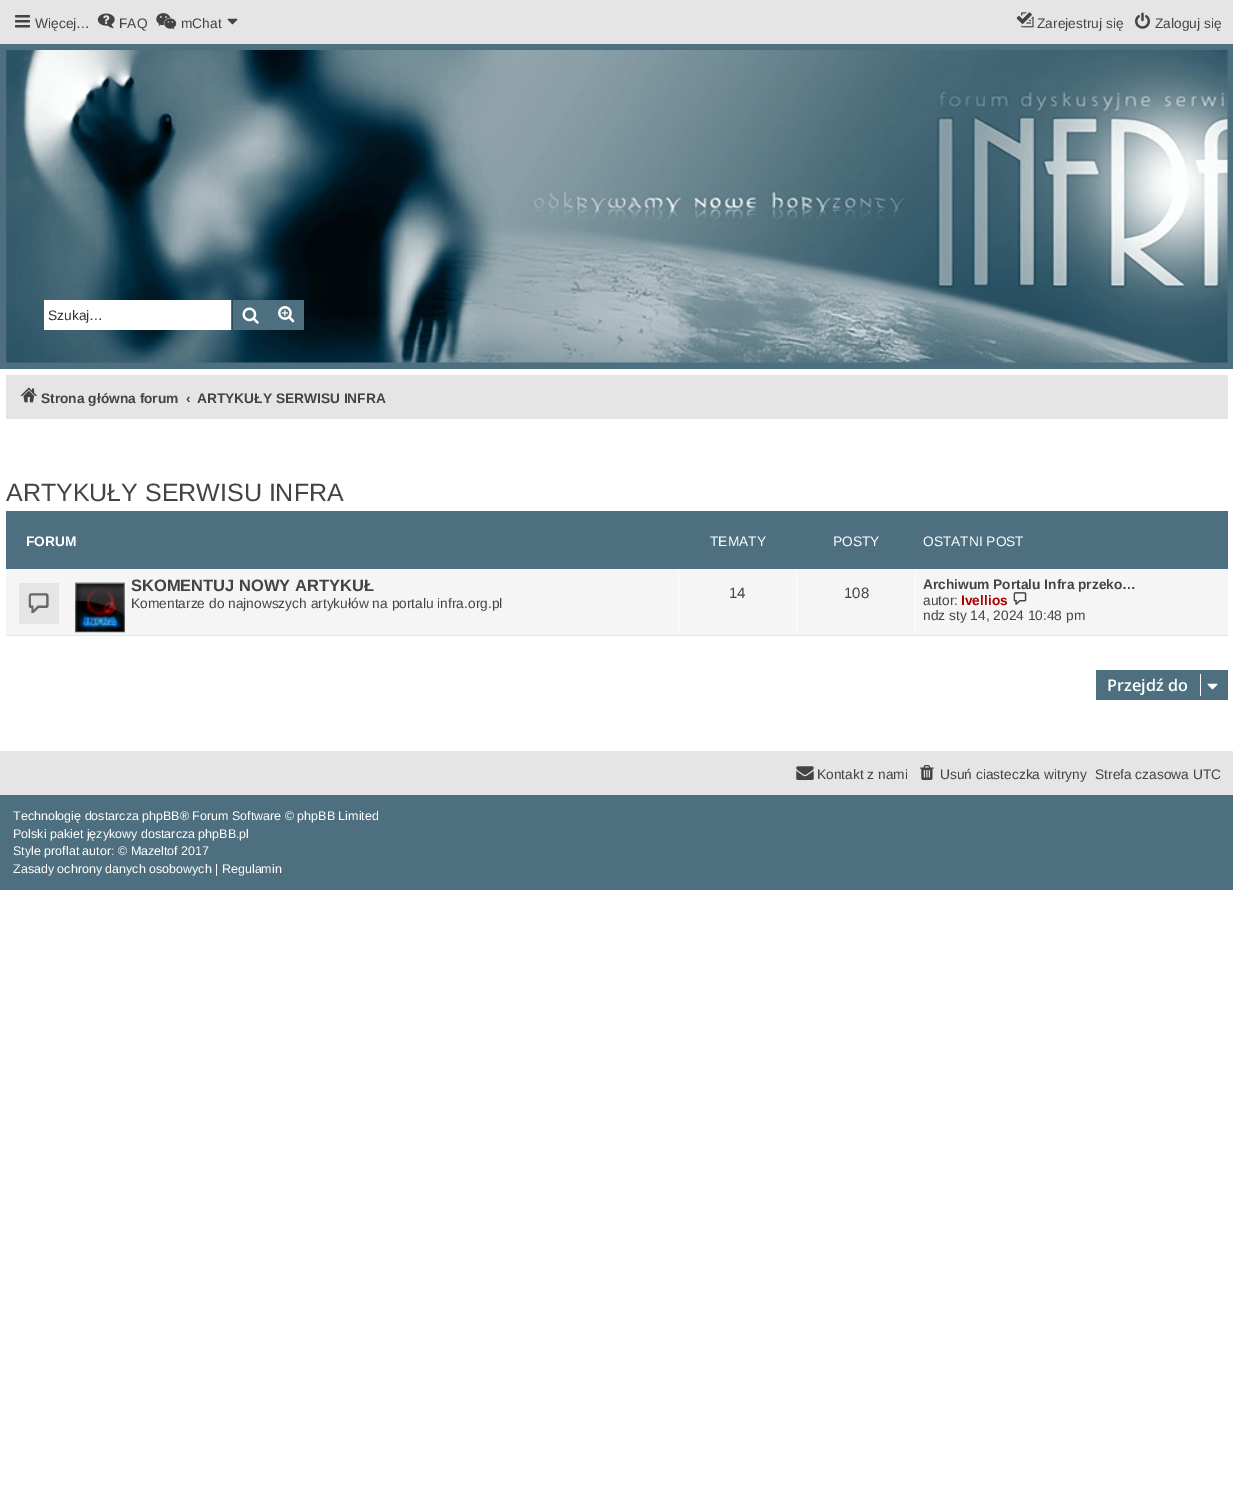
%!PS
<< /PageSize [1233 1493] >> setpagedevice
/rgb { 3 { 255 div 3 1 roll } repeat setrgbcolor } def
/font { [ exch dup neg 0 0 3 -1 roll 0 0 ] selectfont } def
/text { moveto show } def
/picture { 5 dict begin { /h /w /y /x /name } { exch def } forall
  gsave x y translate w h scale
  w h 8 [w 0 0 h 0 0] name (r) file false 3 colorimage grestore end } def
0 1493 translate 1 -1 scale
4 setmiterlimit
255 255 255 rgb
0 0 1233 1493 rectfill
229 229 229 rgb
0 0 1233 44 rectfill
(img_01.rgb) 15 15 15 13 picture
(img_02.rgb) 97 13 18 16 picture
(img_03.rgb) 156 13 21 17 picture
(img_04.rgb) 227 18 11 7 picture
(img_05.rgb) 1016 12 18 16 picture
(img_06.rgb) 1135 12 15 17 picture
78 111 128 rgb
0 44 1233 325 rectfill
(img_07.rgb) 6 50 1222 313 picture
233 300 71 30 rectfill
231 300 1 30 rectfill
(img_08.rgb) 242 307 17 17 picture
255 255 255 rgb
44 300 187 30 rectfill
(img_09.rgb) 278 306 17 17 picture
229 229 229 rgb
6 375 1222 44 rectfill
(img_10.rgb) 20 387 18 16 picture
78 111 128 rgb
6 511 1222 58 rectfill
245 245 245 rgb
6 569 1222 66 rectfill
229 229 229 rgb
6 635 1222 1 rectfill
19 583 40 41 rectfill
(img_11.rgb) 28 593 21 20 picture
(img_12.rgb) 75 582 50 51 picture
255 255 255 rgb
678 571 1 62 rectfill
796 571 1 62 rectfill
915 571 1 62 rectfill
(img_13.rgb) 1013 592 14 13 picture
78 111 128 rgb
1096 670 132 30 rectfill
255 255 255 rgb
1200 674 1 22 rectfill
(img_14.rgb) 1207 683 11 7 picture
229 229 229 rgb
0 751 1233 44 rectfill
(img_15.rgb) 796 766 18 14 picture
(img_16.rgb) 920 765 14 15 picture
78 111 128 rgb
0 795 1233 95 rectfill
/LiberationSans-Regular 13.75 font
68 68 68 rgb
(Więcej…) 35 28 text
(FAQ) 119 28 text
(mChat) 181 28 text
(Zarejestruj się) 1037 28 text
(Zaloguj się) 1155 28 text
51 51 51 rgb
(Szukaj…) 48 320 text
/LiberationSans-Bold 13.75 font
68 68 68 rgb
(Strona główna forum) 41 403 text
(‹) 186 403 text
(ARTYKUŁY SERWISU INFRA) 197 403 text
/LiberationSans-Regular 25 font
(ARTYKUŁY SERWISU INFRA) 6 501 text
/LiberationSans-Bold 13.75 font
255 255 255 rgb
(FORUM) 26 546 text
/LiberationSans-Regular 13.75 font
(TEMATY) 710 546 text
(POSTY) 833 546 text
(OSTATNI POST) 923 546 text
/LiberationSans-Bold 16.5 font
68 68 68 rgb
(SKOMENTUJ NOWY ARTYKUŁ) 131 591 text
/LiberationSans-Regular 13.75 font
(Komentarze do najnowszych artykułów na portalu infra.org.pl) 131 608 text
/LiberationSans-Regular 15 font
(14) 729 598 text
(108) 844 598 text
/LiberationSans-Bold 13.75 font
(Archiwum Portalu Infra przeko…) 923 589 text
/LiberationSans-Regular 13.75 font
(autor:) 923 605 text
/LiberationSans-Bold 13.75 font
170 0 0 rgb
(Ivellios) 961 605 text
/LiberationSans-Regular 13.75 font
68 68 68 rgb
(ndz sty 14, 2024 10:48 pm) 923 620 text
/OpenSans-SemiBold 16.25 font
255 255 255 rgb
(Przejdź do) 1107 691 text
/LiberationSans-Regular 13.75 font
68 68 68 rgb
(Kontakt z nami) 817 779 text
(Usuń ciasteczka witryny) 940 779 text
(Strefa czasowa UTC) 1095 779 text
/LiberationSans-Regular 12.5 font
255 255 255 rgb
(Technologię dostarcza phpBB® Forum Software © phpBB Limited) 13 820 text
(Polski pakiet językowy dostarcza phpBB.pl) 13 838 text
(Style proflat autor: © Mazeltof 2017) 13 855 text
(Zasady ochrony danych osobowych | Regulamin) 13 873 text
showpage
